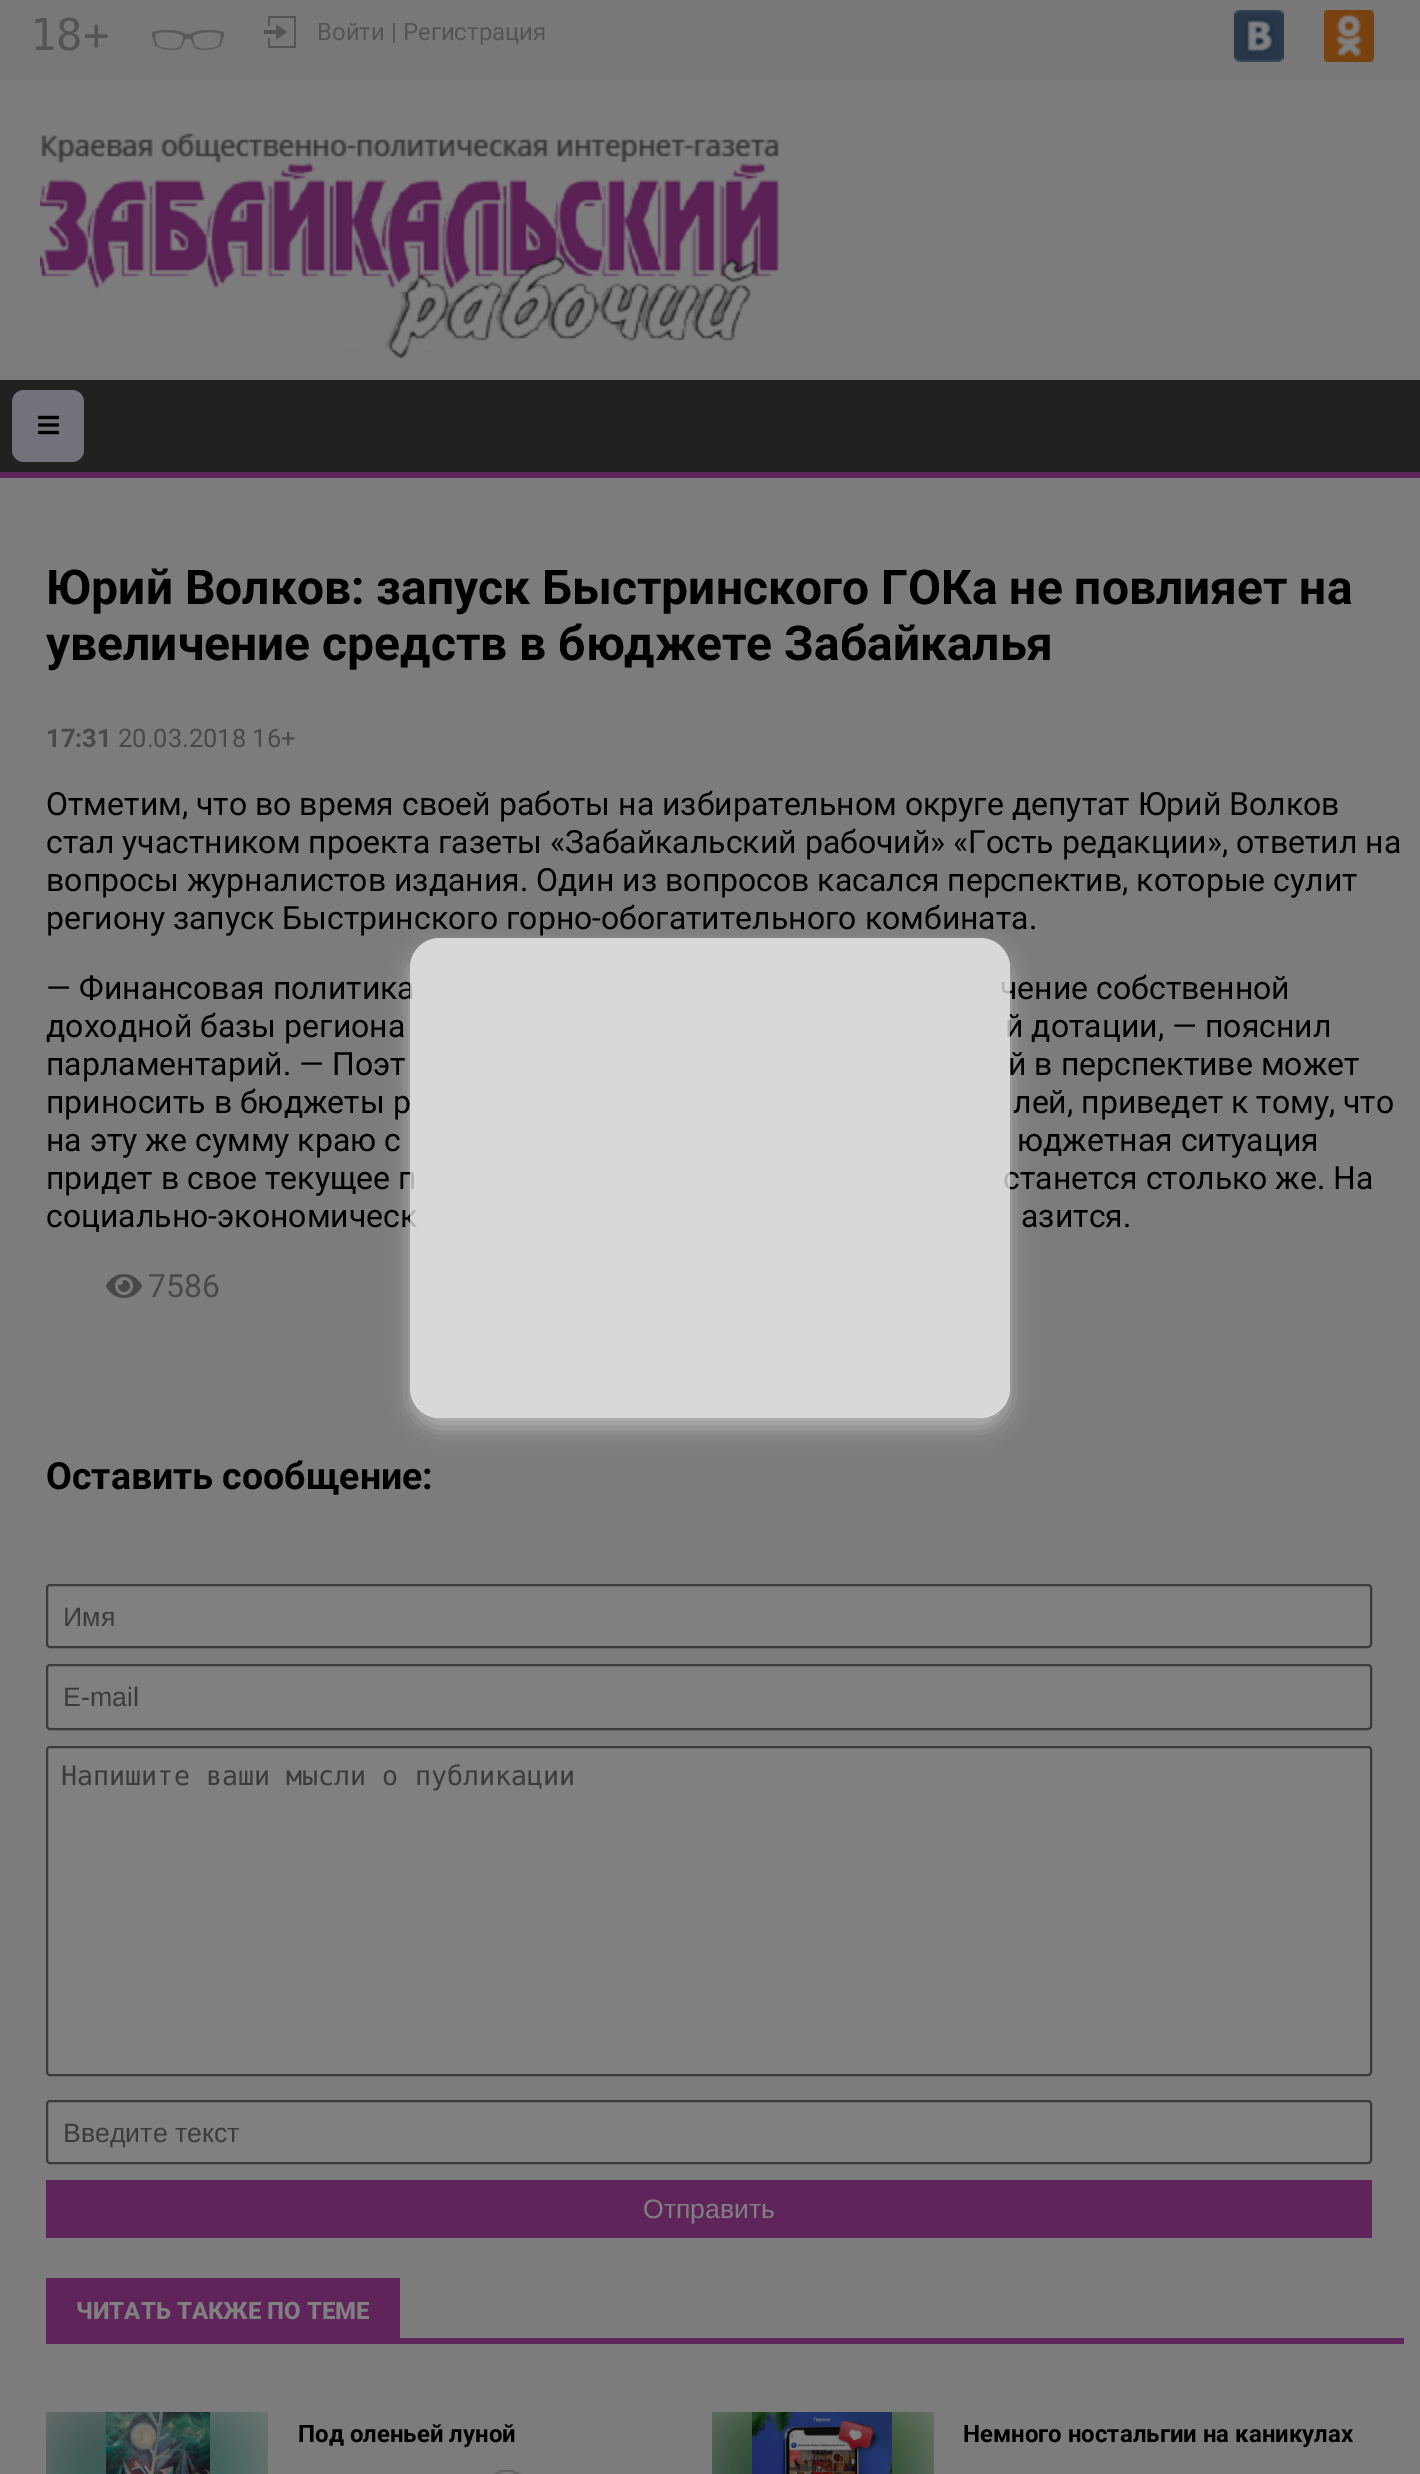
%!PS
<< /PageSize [1420 2474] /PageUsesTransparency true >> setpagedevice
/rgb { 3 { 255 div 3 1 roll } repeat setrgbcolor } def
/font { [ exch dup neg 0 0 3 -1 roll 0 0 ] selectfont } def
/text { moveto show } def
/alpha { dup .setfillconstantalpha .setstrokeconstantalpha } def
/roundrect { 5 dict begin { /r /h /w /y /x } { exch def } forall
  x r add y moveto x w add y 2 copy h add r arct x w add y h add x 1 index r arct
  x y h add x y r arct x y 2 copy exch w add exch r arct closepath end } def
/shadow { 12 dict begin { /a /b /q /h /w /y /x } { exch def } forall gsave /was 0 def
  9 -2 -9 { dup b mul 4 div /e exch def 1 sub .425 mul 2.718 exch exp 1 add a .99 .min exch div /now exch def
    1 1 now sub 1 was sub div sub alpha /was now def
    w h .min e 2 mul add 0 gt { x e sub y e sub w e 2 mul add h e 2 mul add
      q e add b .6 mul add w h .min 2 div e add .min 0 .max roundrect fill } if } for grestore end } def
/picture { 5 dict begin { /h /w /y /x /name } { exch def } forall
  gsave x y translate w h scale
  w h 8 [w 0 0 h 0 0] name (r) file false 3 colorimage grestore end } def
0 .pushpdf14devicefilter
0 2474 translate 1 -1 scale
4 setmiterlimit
124 124 124 rgb
0 0 1420 2474 rectfill
120 120 120 rgb
0 0 1420 80 rectfill
(img_01.rgb) 152 30 72 20 picture
(img_02.rgb) 264 16 32 32 picture
(img_03.rgb) 1234 10 50 52 picture
(img_04.rgb) 1324 10 50 52 picture
(img_05.rgb) 40 133 739 225 picture
33 33 33 rgb
0 380 1420 92 rectfill
95 37 90 rgb
0 472 1420 6 rectfill
113 114 122 rgb
12 390 72 72 12 roundrect fill
(img_06.rgb) 38 415 21 20 picture
(img_07.rgb) 106 1274 36 24 picture
128 128 128 rgb
47 1585 1324 62 3 roundrect gsave fill grestore
59 59 59 rgb
2 setlinewidth
stroke
128 128 128 rgb
47 1665 1324 64 3 roundrect gsave fill grestore
59 59 59 rgb
stroke
128 128 128 rgb
47 1747 1324 328 3 roundrect gsave fill grestore
59 59 59 rgb
stroke
128 128 128 rgb
47 2101 1324 62 3 roundrect gsave fill grestore
59 59 59 rgb
stroke
95 37 90 rgb
46 2180 1326 58 rectfill
46 2338 1358 6 rectfill
46 2278 354 60 rectfill
(img_08.rgb) 46 2412 222 62 picture
(img_09.rgb) 106 2412 104 62 picture
(img_10.rgb) 492 2470 30 4 picture
(img_11.rgb) 712 2412 222 62 picture
(img_12.rgb) 752 2412 140 62 picture
gsave
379 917 moveto 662 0 rlineto 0 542 rlineto -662 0 rlineto closepath 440 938 moveto 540 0 rlineto 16.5 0 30 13.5 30 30 rcurveto 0 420 rlineto 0 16.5 -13.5 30 -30 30 rcurveto -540 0 rlineto -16.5 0 -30 -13.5 -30 -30 rcurveto 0 -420 rlineto 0 -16.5 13.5 -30 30 -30 rcurveto closepath eoclip newpath
204 204 204 rgb
410 948 600 480 30 10 0.7 shadow
grestore
/DejaVuSansMono-Regular 44 font
84 84 84 rgb
(18+) 30 50 text
/Roboto-Regular 24 font
(Войти | Регистрация) 317 40 text
/Roboto-Bold 48 font
0 0 0 rgb
(Юрий Волков: запуск Быстринского ГОКа не повлияет на) 46 604 text
(увеличение средств в бюджете Забайкалья) 46 660 text
/Roboto-Bold 25.5 font
73 73 73 rgb
(17:31) 46 747 text
/Roboto-Regular 25.5 font
(20.03.2018 16+) 118 747 text
/Roboto-Regular 32 font
0 0 0 rgb
(Отметим, что во время своей работы на избирательном округе депутат Юрий Волков) 46 815 text
(стал участником проекта газеты «Забайкальский рабочий» «Гость редакции», ответил на) 46 853 text
(вопросы журналистов издания. Один из вопросов касался перспектив, которые сулит) 46 891 text
(региону запуск Быстринского горно-обогатительного комбината.) 46 929 text
(— Финансовая политика) 46 999 text
(чение собственной) 1000 999 text
(доходной базы региона) 46 1037 text
(й дотации, — пояснил) 1005 1037 text
(парламентарий. — Поэт) 46 1075 text
(й в перспективе может) 1008 1075 text
(приносить в бюджеты р) 46 1113 text
(лей, приведет к тому, что) 1013 1113 text
(на эту же сумму краю с) 46 1151 text
(юджетная ситуация) 1017 1151 text
(придет в свое текущее п) 46 1189 text
(станется столько же. На) 1003 1189 text
(социально-экономическ) 46 1227 text
(азится.) 1021 1227 text
73 73 73 rgb
(7586) 148 1297 text
/Roboto-Bold 37.5 font
0 0 0 rgb
(Оставить сообщение:) 46 1489 text
/LiberationSans-Regular 26.7 font
59 59 59 rgb
(Имя) 63 1626 text
(E-mail) 63 1706 text
/DejaVuSansMono-Regular 26.7 font
(Напишите ваши мысли о публикации) 61 1785 text
/LiberationSans-Regular 26.7 font
(Введите текст) 63 2142 text
128 128 128 rgb
(Отправить) 643 2218 text
/Roboto-ExtraBold 24 font
(ЧИТАТЬ ТАКЖЕ ПО ТЕМЕ) 76 2319 text
/Roboto-Bold 24 font
0 0 0 rgb
(Под оленьей луной) 298 2442 text
(Немного ностальгии на каникулах) 963 2442 text
0.7 alpha
255 255 255 rgb
410 938 600 480 30 roundrect fill
.poppdf14devicefilter showpage
